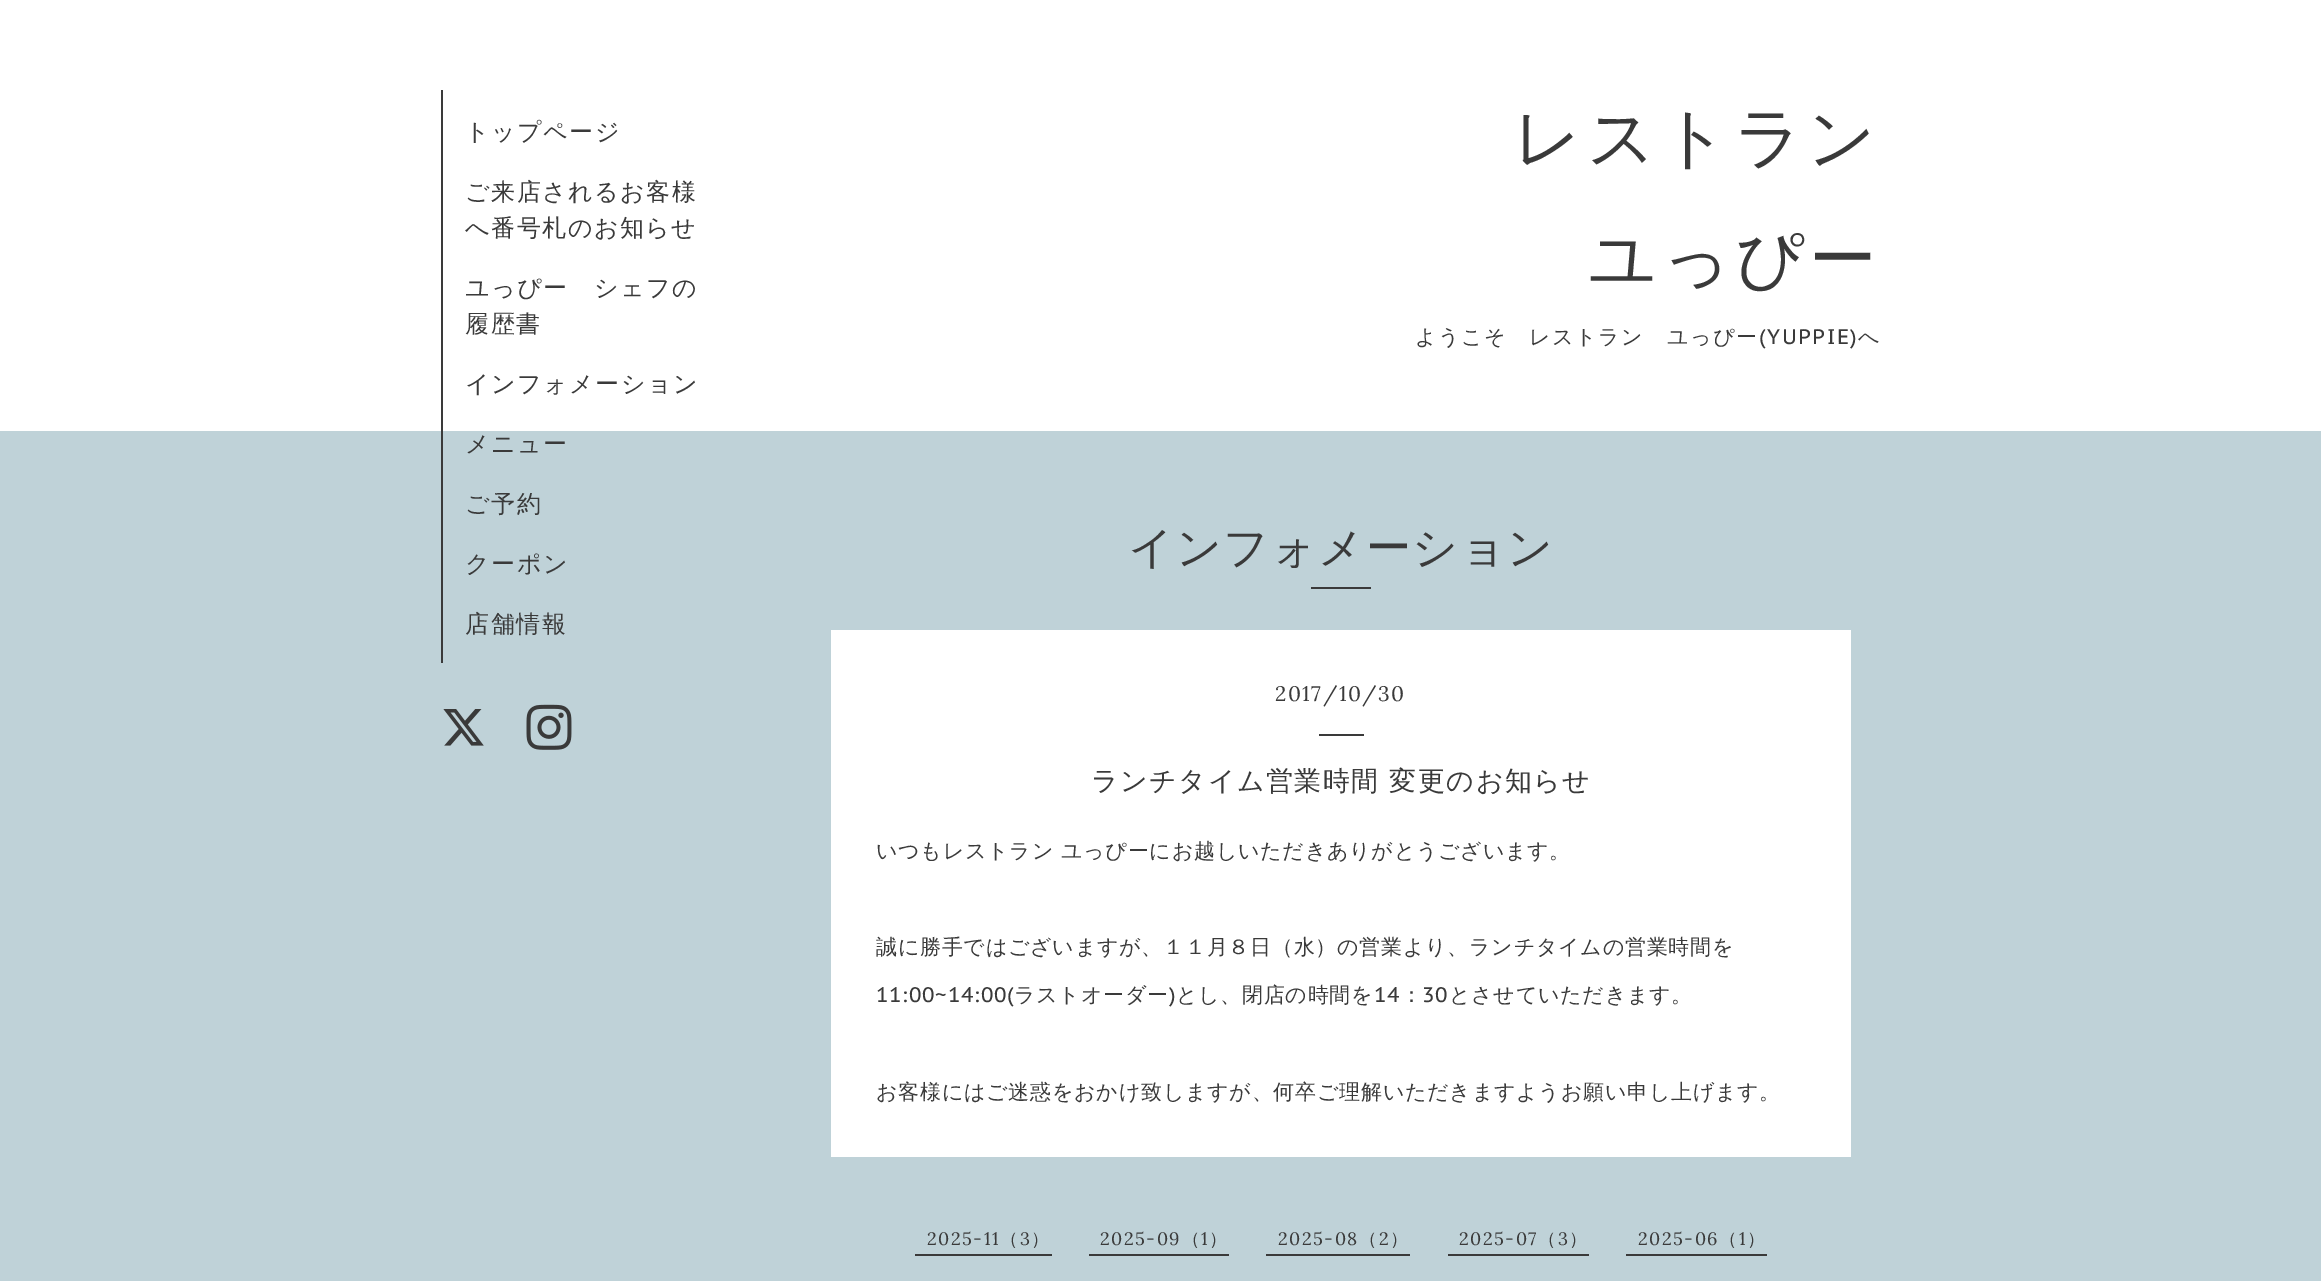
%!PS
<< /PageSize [2321 1281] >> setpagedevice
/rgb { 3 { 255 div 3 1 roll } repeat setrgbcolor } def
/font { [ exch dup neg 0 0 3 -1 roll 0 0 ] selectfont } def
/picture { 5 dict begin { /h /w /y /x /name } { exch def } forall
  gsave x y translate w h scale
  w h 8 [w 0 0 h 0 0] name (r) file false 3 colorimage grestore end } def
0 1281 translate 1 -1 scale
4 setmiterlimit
255 255 255 rgb
0 0 2321 1281 rectfill
191 210 216 rgb
0 431 2321 850 rectfill
58 58 58 rgb
441 90 2 573 rectfill
(img_01.rgb) 443 709 41 37 picture
(img_02.rgb) 526 704 46 46 picture
1311 587 60 2 rectfill
255 255 255 rgb
831 630 1020 527 rectfill
58 58 58 rgb
1319 734 45 2 rectfill
915 1254 137 2 rectfill
1089 1254 140 2 rectfill
1266 1254 144 2 rectfill
1448 1254 141 2 rectfill
1626 1254 141 2 rectfill
/WenQuanYiZenHei-Medium 24 font
465 140 moveto 1.5 0 (トップページ) ashow
465 200 moveto 1.5 0 (ご来店されるお客様) ashow
465 236 moveto 1.5 0 (へ番号札のお知らせ) ashow
465 296 moveto 1.5 0 (ユっぴー　シェフの) ashow
465 332 moveto 1.5 0 (履歴書) ashow
465 392 moveto 1.5 0 (インフォメーション) ashow
465 452 moveto 1.5 0 (メニュー) ashow
465 512 moveto 1.5 0 (ご予約) ashow
465 572 moveto 1.5 0 (クーポン) ashow
465 632 moveto 1.5 0 (店舗情報) ashow
/WenQuanYiZenHei-Medium 67.5 font
1513 161 moveto 4.5 0 (レストラン) ashow
1588 282 moveto 4.5 0 (ユっぴー) ashow
/WenQuanYiZenHei-Medium 21 font
1415 344 moveto 1.5 0 (ようこそ　レストラン　ユっぴー) ashow
/PTSansCaption-Regular 21 font
1759 344 moveto 1.5 0 (\(YUPPIE\)) ashow
/WenQuanYiZenHei-Medium 21 font
1858 344 moveto 1.5 0 (へ) ashow
/WenQuanYiZenHei-Medium 45 font
1128 563 moveto 1.5 0 (インフォメーション) ashow
/Lora-Regular 21 font
1275 701 moveto 1.5 0 (2017/10/30) ashow
/WenQuanYiZenHei-Medium 27 font
1091 790 moveto 1.5 0 (ランチタイム営業時間 変更のお知らせ) ashow
/WenQuanYiZenHei-Medium 21 font
876 858 moveto 0.75 0 (いつもレストラン ユっぴーにお越しいただきありがとうございます。) ashow
876 954 moveto 0.75 0 (誠に勝手ではございますが、１１月８日（水）の営業より、ランチタイムの営業時間を) ashow
/PTSansCaption-Regular 21 font
876 1002 moveto 0.75 0 (11:00~14:00\() ashow
/WenQuanYiZenHei-Medium 21 font
1014 1002 moveto 0.75 0 (ラストオーダー とし、閉店の時間を) ashow
1449 1002 moveto 0.75 0 (とさせていただきます。) ashow
/PTSansCaption-Regular 21 font
1169 1002 moveto 0.75 0 (\)) ashow
1374 1002 moveto 0.75 0 (14) ashow
/WenQuanYiZenHei-Medium 21 font
1401 1002 moveto 0.75 0 (：) ashow
/PTSansCaption-Regular 21 font
1422 1002 moveto 0.75 0 (30) ashow
/WenQuanYiZenHei-Medium 21 font
876 1099 moveto 0.75 0 (お客様にはご迷惑をおかけ致しますが、何卒ご理解いただきますようお願い申し上げます。) ashow
/Lora-Regular 18 font
927 1245 moveto 1.5 0 (2025-11) ashow
/WenQuanYiZenHei-Medium 18 font
1000 1245 moveto 1.5 0 (（) ashow
/Lora-Regular 18 font
1020 1245 moveto 1.5 0 (3) ashow
/WenQuanYiZenHei-Medium 18 font
1031 1245 moveto 1.5 0 (）) ashow
/Lora-Regular 18 font
1100 1245 moveto 1.5 0 (2025-09) ashow
/WenQuanYiZenHei-Medium 18 font
1182 1245 moveto 1.5 0 (（) ashow
/Lora-Regular 18 font
1201 1245 moveto 1.5 0 (1) ashow
/WenQuanYiZenHei-Medium 18 font
1209 1245 moveto 1.5 0 (）) ashow
/Lora-Regular 18 font
1278 1245 moveto 1.5 0 (2025-08) ashow
/WenQuanYiZenHei-Medium 18 font
1359 1245 moveto 1.5 0 (（) ashow
/Lora-Regular 18 font
1379 1245 moveto 1.5 0 (2) ashow
/WenQuanYiZenHei-Medium 18 font
1390 1245 moveto 1.5 0 (）) ashow
/Lora-Regular 18 font
1459 1245 moveto 1.5 0 (2025-07) ashow
/WenQuanYiZenHei-Medium 18 font
1538 1245 moveto 1.5 0 (（) ashow
/Lora-Regular 18 font
1558 1245 moveto 1.5 0 (3) ashow
/WenQuanYiZenHei-Medium 18 font
1569 1245 moveto 1.5 0 (）) ashow
/Lora-Regular 18 font
1638 1245 moveto 1.5 0 (2025-06) ashow
/WenQuanYiZenHei-Medium 18 font
1719 1245 moveto 1.5 0 (（) ashow
/Lora-Regular 18 font
1739 1245 moveto 1.5 0 (1) ashow
/WenQuanYiZenHei-Medium 18 font
1747 1245 moveto 1.5 0 (）) ashow
showpage
